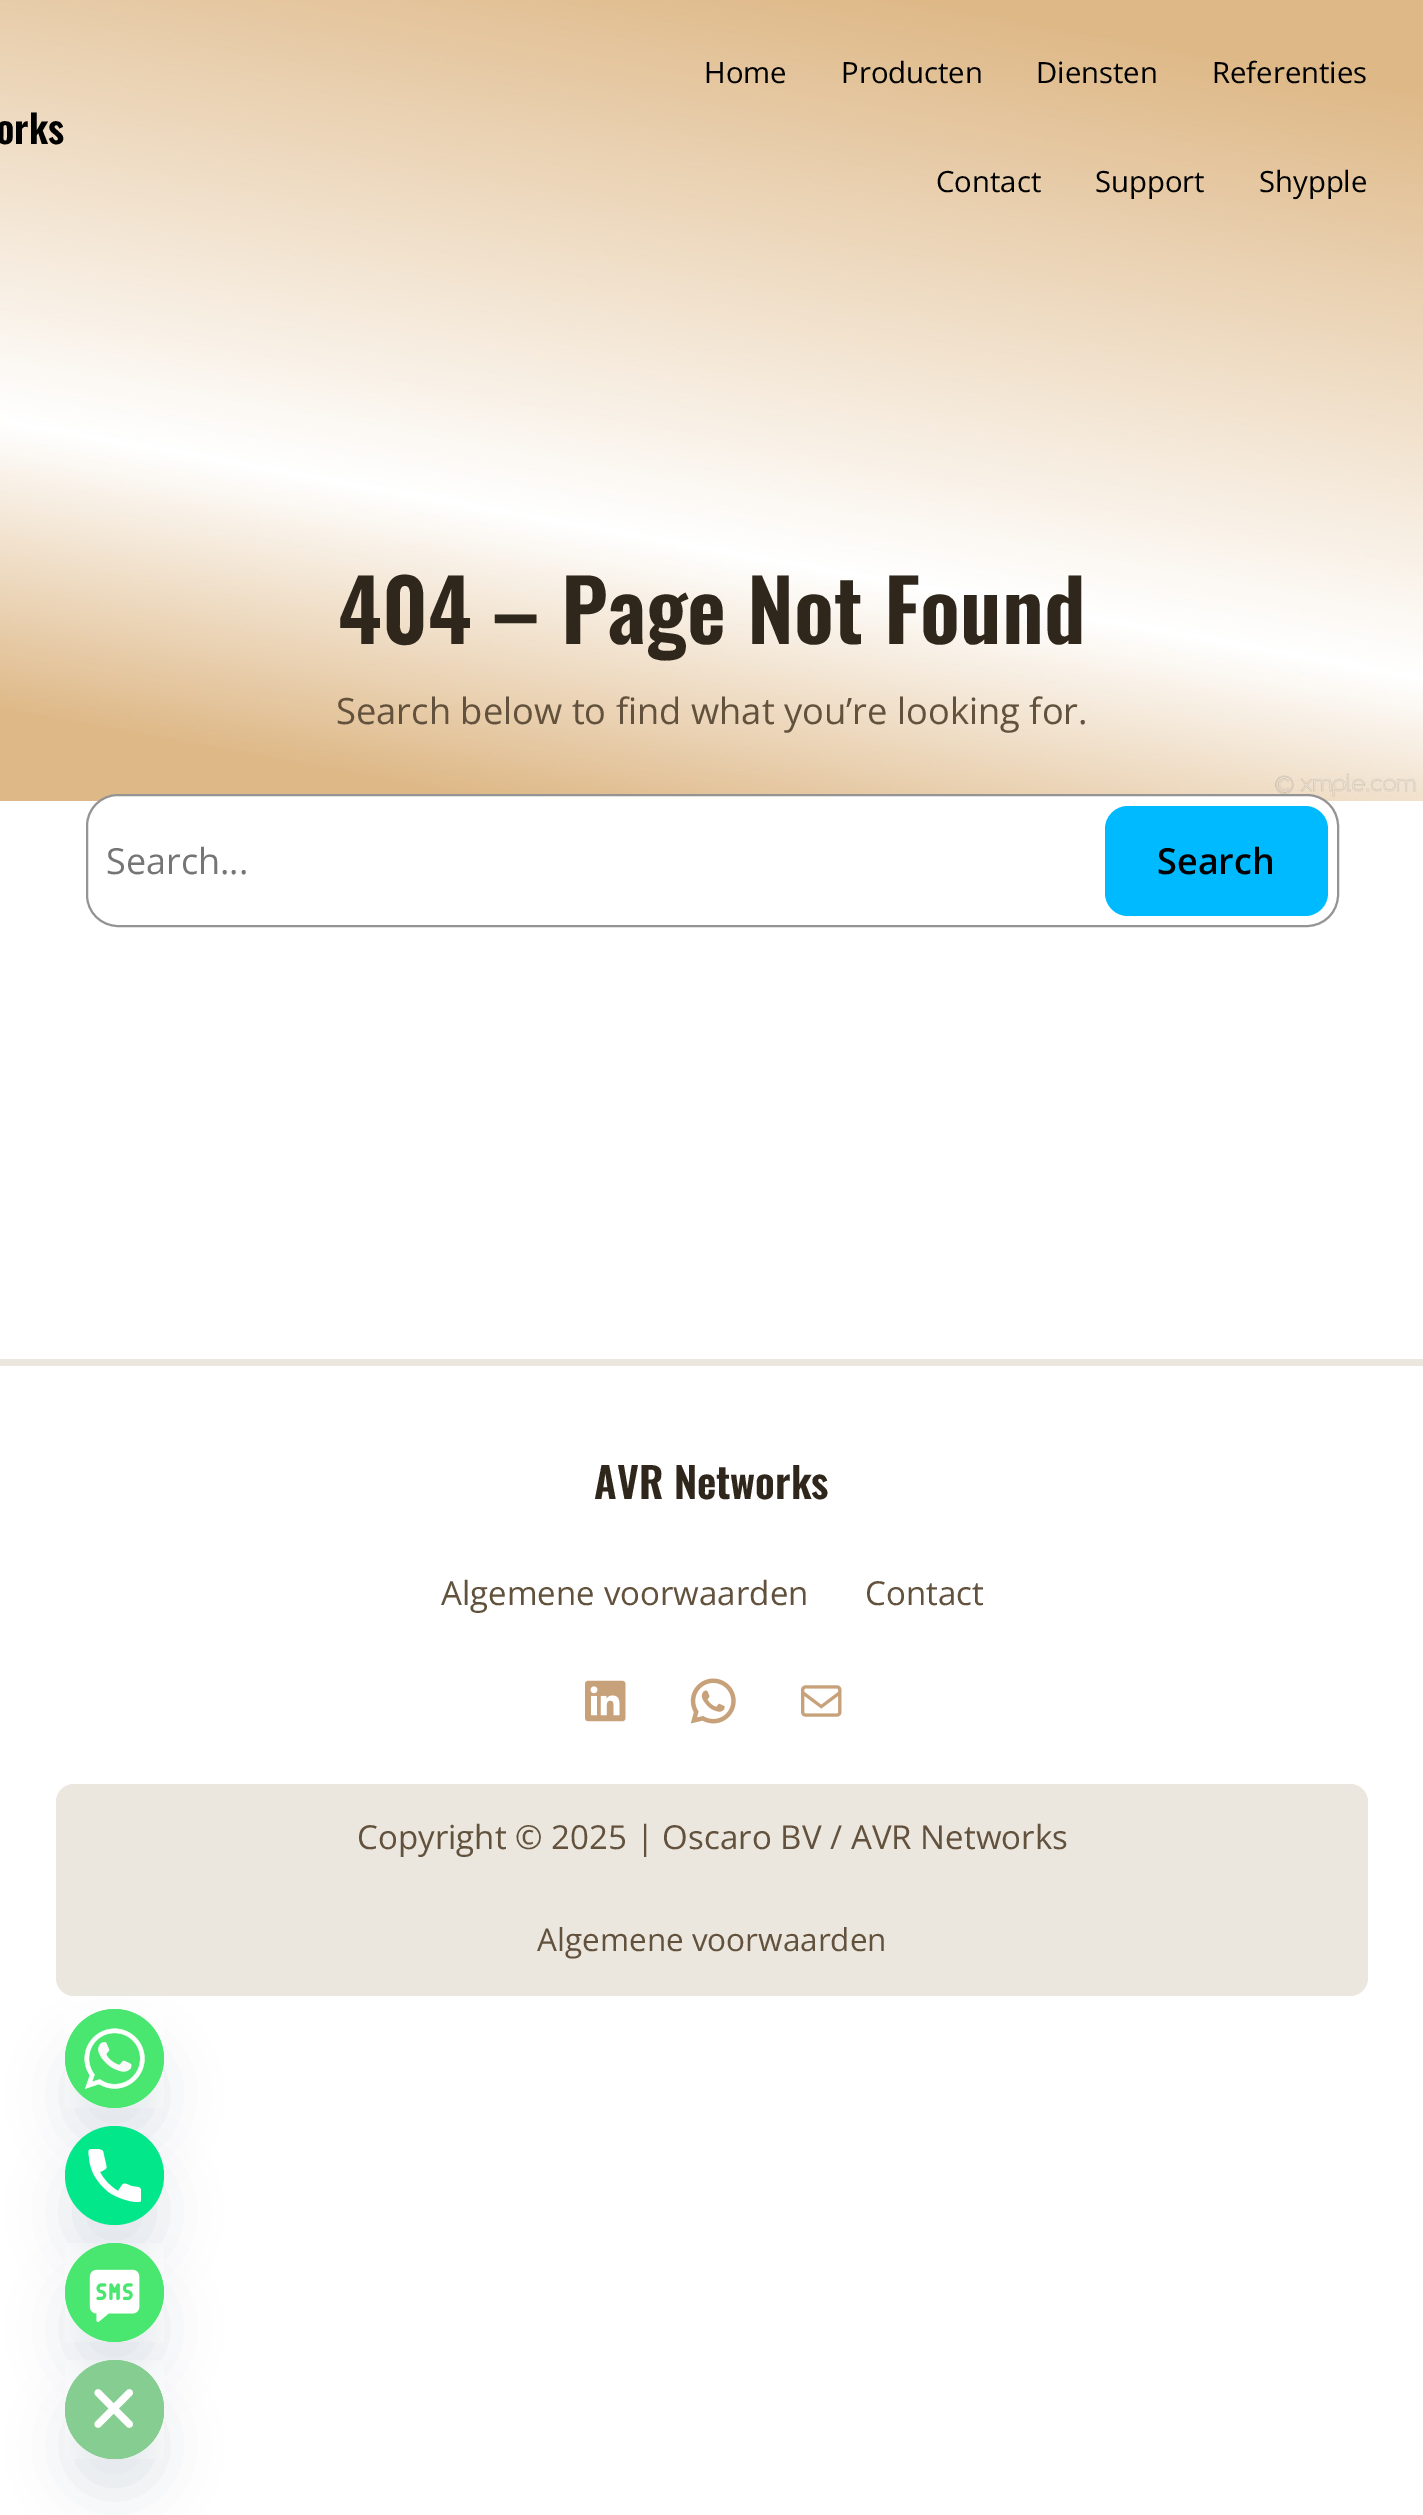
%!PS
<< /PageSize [1423 2515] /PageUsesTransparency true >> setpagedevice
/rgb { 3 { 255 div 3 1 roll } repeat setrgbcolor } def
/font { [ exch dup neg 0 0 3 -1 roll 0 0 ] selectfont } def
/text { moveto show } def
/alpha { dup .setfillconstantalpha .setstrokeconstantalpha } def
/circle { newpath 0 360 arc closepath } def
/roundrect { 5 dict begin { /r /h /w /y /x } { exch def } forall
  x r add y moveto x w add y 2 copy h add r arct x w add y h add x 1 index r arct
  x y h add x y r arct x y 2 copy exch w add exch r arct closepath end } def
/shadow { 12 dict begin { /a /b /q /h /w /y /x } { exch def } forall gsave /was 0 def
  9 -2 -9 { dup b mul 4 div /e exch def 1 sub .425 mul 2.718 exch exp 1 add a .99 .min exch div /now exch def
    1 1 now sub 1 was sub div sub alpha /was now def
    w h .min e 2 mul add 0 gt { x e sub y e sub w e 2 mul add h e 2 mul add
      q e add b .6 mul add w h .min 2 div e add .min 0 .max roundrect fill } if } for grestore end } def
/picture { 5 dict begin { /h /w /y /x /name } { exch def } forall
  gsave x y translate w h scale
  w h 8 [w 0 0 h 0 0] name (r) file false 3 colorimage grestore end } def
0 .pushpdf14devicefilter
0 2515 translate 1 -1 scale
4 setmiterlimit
255 255 255 rgb
0 0 1423 2515 rectfill
(img_01.rgb) 0 0 1423 801 picture
87 795 1251 131 31 roundrect gsave fill grestore
148 148 148 rgb
2 setlinewidth
stroke
0 186 255 rgb
1105 806 223 110 23 roundrect fill
235 231 222 rgb
0 1359 1423 7 rectfill
(img_02.rgb) 585 1680 41 42 picture
(img_03.rgb) 690 1678 46 46 picture
(img_04.rgb) 801 1685 41 32 picture
56 1784 1312 212 18 roundrect fill
73 104 126 rgb
65 2045 99 99 49.5 27 0.16 shadow
(img_05.rgb) 65 2009 99 99 picture
65 2162 99 99 49.5 27 0.16 shadow
3 231 139 rgb
114.5 2175.5 49.5 circle fill
255 255 255 rgb
138 2187 moveto -7 -1 rlineto -2 -1 -7 -4 -9 -1 rcurveto -4 6 rlineto -8 -5 -14 -11 -18 -19 rcurveto 8 -4 7 -3 5 -12 rcurveto -2 -9 rlineto -2 -2 -6 -2 -8 -2 rcurveto -7 0 -7 0 -6 8 rcurveto 0 5 2 11 4 16 rcurveto 4 8 10 15 17 20 rcurveto 8 5 17 8 26 9 rcurveto 1 0 4 0 5 -1 rcurveto 0 -12 rlineto -1 -1 -2 -2 -3 -2 rcurveto closepath fill
73 104 126 rgb
65 2279 99 99 49.5 27 0.16 shadow
(img_06.rgb) 65 2243 99 99 picture
65 2396 99 99 49.5 27 0.16 shadow
134 205 145 rgb
115 2459 moveto -28 0 -50 -22 -50 -49 rcurveto 0 -28 22 -50 50 -50 rcurveto 27 0 49 22 49 50 rcurveto 0 27 -22 49 -49 49 rcurveto closepath fill
(img_07.rgb) 65 2360 99 99 picture
/Oswald-SemiBold 39 font
0 0 0 rgb
(orks) -4 144 text
/OpenSans-Regular 29.25 font
(Home) 704 83 text
(Producten) 841 83 text
(Diensten) 1036 83 text
(Referenties) 1212 83 text
(Contact) 936 192 text
(Support) 1095 192 text
(Shypple) 1259 192 text
/Oswald-SemiBold 84.75 font
48 39 28 rgb
(404 – Page Not Found) 338 644 text
/OpenSans-Regular 36.3 font
98 81 60 rgb
(Search below to find what you’re looking for.) 336 724 text
/OpenSans-Regular 36 font
117 117 117 rgb
(Search...) 106 874 text
/OpenSans-SemiBold 36 font
0 0 0 rgb
(Search) 1157 874 text
/Oswald-SemiBold 42 font
48 39 28 rgb
(AVR Networks) 594 1499 text
/OpenSans-Regular 33.1 font
98 81 60 rgb
(Algemene voorwaarden) 441 1605 text
(Contact) 865 1605 text
(Copyright © 2025 | Oscaro BV / AVR Networks) 357 1849 text
/OpenSans-Regular 31.5 font
(Algemene voorwaarden) 537 1951 text
.poppdf14devicefilter showpage
